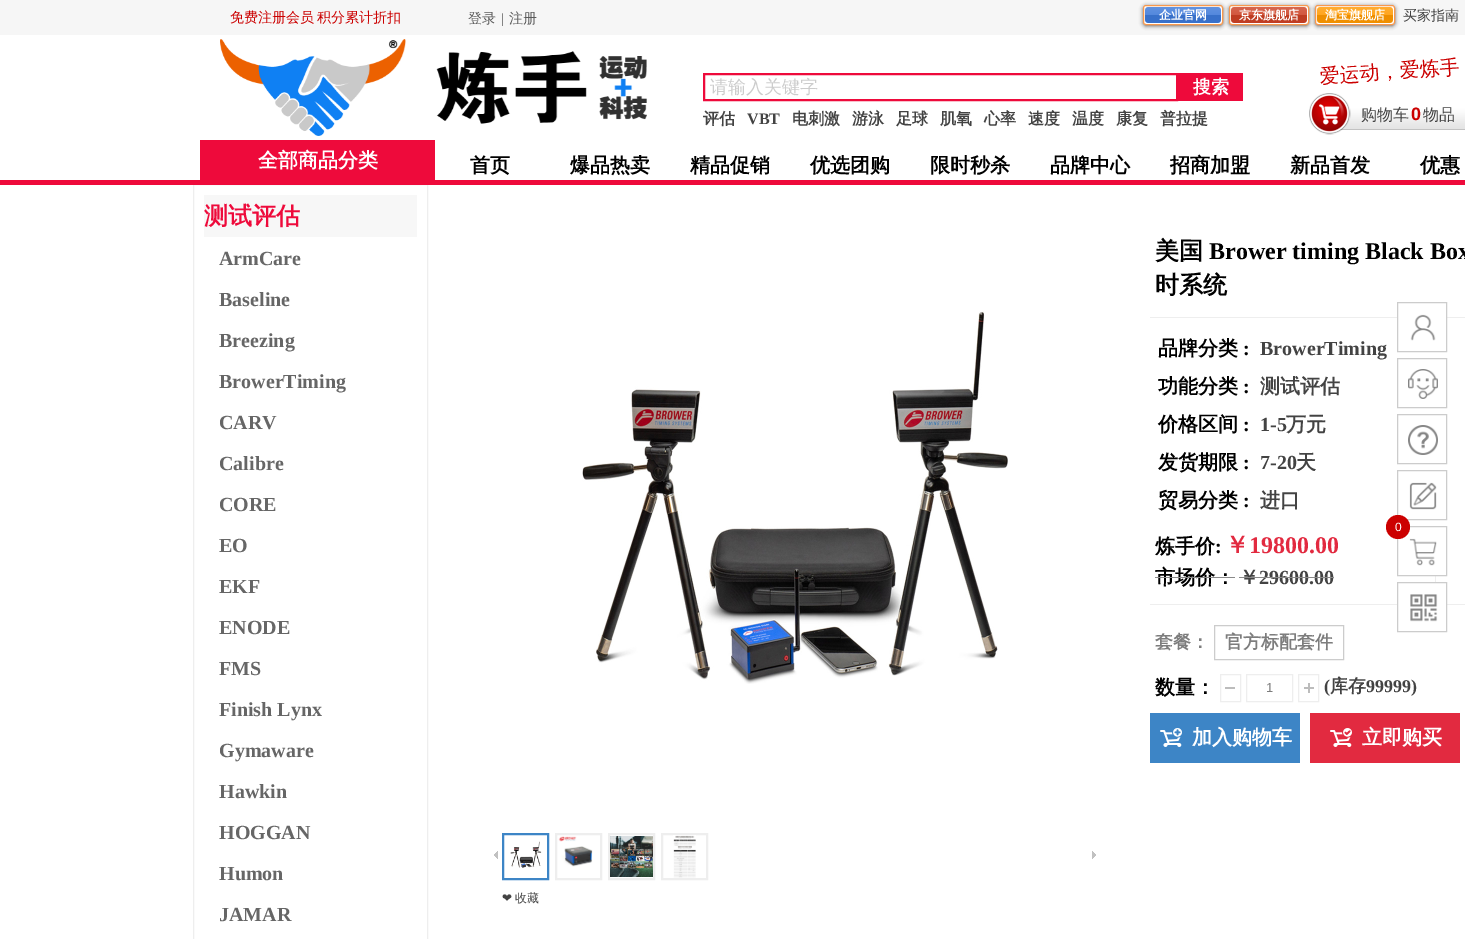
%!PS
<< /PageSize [1465 939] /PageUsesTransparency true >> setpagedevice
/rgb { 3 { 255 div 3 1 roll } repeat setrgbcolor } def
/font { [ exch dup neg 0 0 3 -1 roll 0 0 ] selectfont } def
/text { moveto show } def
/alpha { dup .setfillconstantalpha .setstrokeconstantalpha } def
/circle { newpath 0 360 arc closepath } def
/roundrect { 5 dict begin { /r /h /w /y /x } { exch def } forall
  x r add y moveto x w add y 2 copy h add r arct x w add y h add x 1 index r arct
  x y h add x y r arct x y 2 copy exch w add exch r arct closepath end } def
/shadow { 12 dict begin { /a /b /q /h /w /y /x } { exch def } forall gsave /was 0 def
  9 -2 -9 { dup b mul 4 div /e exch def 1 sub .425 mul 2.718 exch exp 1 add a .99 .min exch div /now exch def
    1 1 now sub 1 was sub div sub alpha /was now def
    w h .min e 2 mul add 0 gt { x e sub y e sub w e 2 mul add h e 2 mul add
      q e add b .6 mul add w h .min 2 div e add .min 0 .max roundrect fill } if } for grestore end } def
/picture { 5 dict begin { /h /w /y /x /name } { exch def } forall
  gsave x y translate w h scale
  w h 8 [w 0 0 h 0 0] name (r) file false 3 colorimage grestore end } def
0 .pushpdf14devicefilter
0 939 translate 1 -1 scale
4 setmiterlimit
255 255 255 rgb
0 0 1465 939 rectfill
246 246 246 rgb
0 0 1465 35 rectfill
0 0 0 rgb
1315 6 80 20 3 2 0.6 shadow
255 255 255 rgb
1315.5 5.5 79 19 2.5 roundrect gsave fill grestore
248 152 77 rgb
stroke
0 0 0 rgb
1229 6 80 20 3 2 0.6 shadow
255 255 255 rgb
1229.5 5.5 79 19 2.5 roundrect gsave fill grestore
248 152 77 rgb
stroke
0 0 0 rgb
1143 6 80 20 3 2 0.6 shadow
255 255 255 rgb
1143.5 5.5 79 19 2.5 roundrect gsave fill grestore
248 152 77 rgb
stroke
60 120 216 rgb
1145 7 76 16 3 roundrect fill
(img_01.rgb) 1145 7 76 16 picture
204 65 37 rgb
1231 7 76 16 3 roundrect fill
(img_02.rgb) 1231 7 76 16 picture
255 153 0 rgb
1317 7 76 16 3 roundrect fill
(img_03.rgb) 1317 7 76 16 picture
(img_04.rgb) 220 39 427 97 picture
238 10 59 rgb
2 setlinewidth
704 74 473 26 rectstroke
1178 73 65 28 rectfill
(img_05.rgb) 1309 93 156 42 picture
200 140 235 40 rectfill
238 238 238 rgb
1 setlinewidth
193.5 184.5 234 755 rectstroke
238 10 59 rgb
0 180 1465 5 rectfill
247 247 247 rgb
204 195 213 42 rectfill
238 238 238 rgb
1150 317 315 1 rectfill
1150 604 315 1 rectfill
1435 576 1 6 rectfill
204 204 204 rgb
1214.5 625.5 129 34 rectstroke
188 188 188 rgb
1225 687 10 2 rectfill
238 238 238 rgb
1220.5 674.5 20 27 rectstroke
1246.5 674.5 46 27 rectstroke
(img_06.rgb) 1304 683 10 10 picture
1298.5 674.5 20 27 rectstroke
61 133 198 rgb
1150 713 150 50 rectfill
(img_07.rgb) 1160 728 22 19 picture
226 42 64 rgb
1310 713 150 50 rectfill
(img_08.rgb) 1330 728 22 19 picture
(img_09.rgb) 582 311 426 373 picture
(img_10.rgb) 494 851 4 8 picture
61 133 198 rgb
2 setlinewidth
503 834 45 45 rectstroke
(img_11.rgb) 510 841 32 27 picture
238 238 238 rgb
556 834 45 45 rectstroke
(img_12.rgb) 558 836 35 31 picture
609 834 45 45 rectstroke
(img_13.rgb) 610 836 43 41 picture
662 834 45 45 rectstroke
(img_14.rgb) 673 835 23 43 picture
(img_15.rgb) 1092 851 4 8 picture
255 255 255 rgb
1398 317 48 1 rectfill
204 204 204 rgb
1 setlinewidth
1397.5 302.5 49 49 rectstroke
(img_16.rgb) 1410 314 26 27 picture
1397.5 358.5 49 49 rectstroke
(img_17.rgb) 1408 369 30 30 picture
1397.5 414.5 49 49 rectstroke
(img_18.rgb) 1408 425 30 30 picture
1397.5 470.5 49 49 rectstroke
(img_19.rgb) 1409 482 28 28 picture
1397.5 526.5 49 49 rectstroke
(img_20.rgb) 1409 538 28 28 picture
204 0 0 rgb
1398 527 12 circle fill
255 255 255 rgb
1398 604 48 1 rectfill
204 204 204 rgb
1397.5 582.5 49 49 rectstroke
(img_21.rgb) 1410 594 28 28 picture
/WenQuanYiZenHei-Medium 14 font
203 0 0 rgb
230 22 moveto -1 0 32 (免费注册会员 积分累计折扣) widthshow
90 90 90 rgb
(登录) 468 23 text
/LiberationSerif-Regular 14 font
(|) 501 23 text
/WenQuanYiZenHei-Medium 14 font
(注册) 509 23 text
/WenQuanYiZenHei-Bold 12 font
255 255 255 rgb
(企业官网) 1159 19 text
(京东旗舰店) 1239 19 text
(淘宝旗舰店) 1325 19 text
/WenQuanYiZenHei-Medium 14 font
67 67 67 rgb
(买家指南) 1403 20 text
/WenQuanYiZenHei-Medium 20 font
203 0 0 rgb
gsave 1320 83 translate -4 rotate 0 0 moveto (爱运动，爱炼手！) show grestore
/WenQuanYiZenHei-Medium 18 font
204 204 204 rgb
(请输入关键字) 710 93 text
/WenQuanYiZenHei-Bold 18 font
255 255 255 rgb
(搜索) 1193 93 text
/WenQuanYiZenHei-Bold 16 font
67 67 67 rgb
(评估) 703 124 text
/LiberationSerif-Bold 16 font
(VBT) 747 124 text
/WenQuanYiZenHei-Bold 16 font
(电刺激) 792 124 text
(游泳) 852 124 text
(足球) 896 124 text
(肌氧) 940 124 text
(心率) 984 124 text
(速度) 1028 124 text
(温度) 1072 124 text
(康复) 1116 124 text
(普拉提) 1160 124 text
/WenQuanYiZenHei-Medium 16 font
(购物车) 1361 120 text
/LiberationSans-Bold 18 font
203 0 0 rgb
(0) 1411 120 text
/WenQuanYiZenHei-Medium 16 font
67 67 67 rgb
(物品) 1423 120 text
/WenQuanYiZenHei-Bold 20 font
255 255 255 rgb
(全部商品分类) 258 167 text
0 0 0 rgb
(首页) 470 172 text
(爆品热卖) 570 172 text
(精品促销) 690 172 text
(优选团购) 810 172 text
(限时秒杀) 930 172 text
(品牌中心) 1050 172 text
(招商加盟) 1170 172 text
(新品首发) 1290 172 text
(优惠) 1420 172 text
/WenQuanYiZenHei-Bold 24 font
238 10 59 rgb
(测试评估) 204 224 text
/LiberationSerif-Bold 20 font
102 102 102 rgb
(ArmCare) 219 265 text
(Baseline) 219 306 text
(Breezing) 219 347 text
(BrowerTiming) 219 388 text
(CARV) 219 429 text
(Calibre) 219 470 text
(CORE) 219 511 text
(EO) 219 552 text
(EKF) 219 593 text
(ENODE) 219 634 text
(FMS) 219 675 text
(Finish Lynx) 219 716 text
(Gymaware) 219 757 text
(Hawkin) 219 798 text
(HOGGAN) 219 839 text
(Humon) 219 880 text
(JAMAR) 219 921 text
/WenQuanYiZenHei-Bold 24 font
0 0 0 rgb
(美国) 1155 259 text
/LiberationSerif-Bold 24 font
(Brower timing Black Box) 1209 259 text
/WenQuanYiZenHei-Bold 24 font
(时系统) 1155 293 text
/WenQuanYiZenHei-Bold 20 font
(品牌分类) 1158 355 text
/LiberationSerif-Bold 20 font
(:) 1243 355 text
67 67 67 rgb
(BrowerTiming) 1260 355 text
/WenQuanYiZenHei-Bold 20 font
0 0 0 rgb
(功能分类) 1158 393 text
/LiberationSerif-Bold 20 font
(:) 1243 393 text
/WenQuanYiZenHei-Bold 20 font
67 67 67 rgb
(测试评估) 1260 393 text
0 0 0 rgb
(价格区间) 1158 431 text
/LiberationSerif-Bold 20 font
(:) 1243 431 text
67 67 67 rgb
(1-5) 1260 431 text
/WenQuanYiZenHei-Bold 20 font
(万元) 1286 431 text
0 0 0 rgb
(发货期限) 1158 469 text
/LiberationSerif-Bold 20 font
(:) 1243 469 text
67 67 67 rgb
(7-20) 1260 469 text
/WenQuanYiZenHei-Bold 20 font
(天) 1296 469 text
0 0 0 rgb
(贸易分类) 1158 507 text
/LiberationSerif-Bold 20 font
(:) 1243 507 text
/WenQuanYiZenHei-Bold 20 font
67 67 67 rgb
(进口) 1260 507 text
0 0 0 rgb
(炼手价) 1155 553 text
/LiberationSerif-Bold 20 font
(:) 1215 553 text
/WenQuanYiZenHei-Bold 24 font
226 42 64 rgb
(￥) 1225 553 text
/LiberationSerif-Bold 24 font
(19800.00) 1249 553 text
/WenQuanYiZenHei-Bold 20 font
0 0 0 rgb
(市场价：) 1155 584 text
137 137 137 rgb
1155 577 80 1 rectfill
67 67 67 rgb
(￥) 1239 584 text
/LiberationSerif-Bold 20 font
(29600.00) 1259 584 text
137 137 137 rgb
1239 577 95 1 rectfill
/WenQuanYiZenHei-Bold 18 font
125 125 125 rgb
(套餐：) 1155 648 text
(官方标配套件) 1225 648 text
/WenQuanYiZenHei-Bold 20 font
0 0 0 rgb
(数量：) 1155 694 text
/LiberationSans-Regular 13 font
125 125 125 rgb
(1) 1266 692 text
/LiberationSerif-Bold 18 font
67 67 67 rgb
(\() 1324 692 text
/WenQuanYiZenHei-Bold 18 font
(库存) 1330 692 text
/LiberationSerif-Bold 18 font
(99999\)) 1366 692 text
/WenQuanYiZenHei-Bold 20 font
255 255 255 rgb
(加入购物车) 1192 744 text
(立即购买) 1362 744 text
/DejaVuSans-Regular 12 font
67 67 67 rgb
(❤) 502 902 text
/WenQuanYiZenHei-Medium 12 font
(收藏) 515 902 text
/LiberationSans-Regular 12 font
255 255 255 rgb
(0) 1395 531 text
.poppdf14devicefilter showpage
